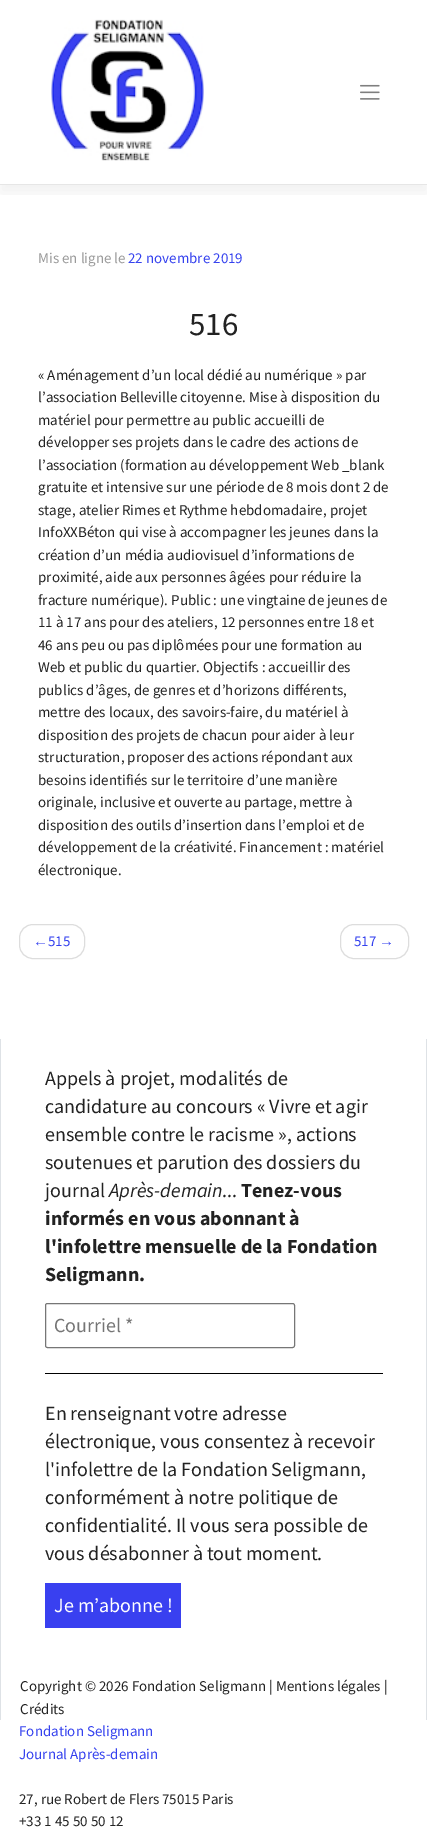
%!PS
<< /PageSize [427 1828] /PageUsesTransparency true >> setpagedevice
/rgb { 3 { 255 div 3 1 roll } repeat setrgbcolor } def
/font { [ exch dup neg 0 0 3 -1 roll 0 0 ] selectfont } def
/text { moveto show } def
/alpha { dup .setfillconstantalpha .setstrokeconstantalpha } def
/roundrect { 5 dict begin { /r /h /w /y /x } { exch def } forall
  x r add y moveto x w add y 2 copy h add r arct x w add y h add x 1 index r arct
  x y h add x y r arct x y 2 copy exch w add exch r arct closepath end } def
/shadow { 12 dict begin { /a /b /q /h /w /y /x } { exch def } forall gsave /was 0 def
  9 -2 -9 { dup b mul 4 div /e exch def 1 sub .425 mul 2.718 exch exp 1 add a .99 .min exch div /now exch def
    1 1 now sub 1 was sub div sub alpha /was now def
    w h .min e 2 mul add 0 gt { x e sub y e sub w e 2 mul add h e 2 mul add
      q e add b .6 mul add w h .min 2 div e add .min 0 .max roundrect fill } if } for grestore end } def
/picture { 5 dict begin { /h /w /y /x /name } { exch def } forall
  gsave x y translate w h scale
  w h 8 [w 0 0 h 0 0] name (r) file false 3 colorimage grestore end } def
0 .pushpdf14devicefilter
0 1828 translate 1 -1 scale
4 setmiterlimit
255 255 255 rgb
0 0 427 1828 rectfill
gsave
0 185 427 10 rectclip
0 0 0 rgb
0 8 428 185 0 7.5 0.05 shadow
grestore
230 230 230 rgb
0 184 427 1 rectfill
(img_01.rgb) 51 19 153 142 picture
(img_02.rgb) 360 84 20 16 picture
221 221 221 rgb
19.5 924.5 65 34 13.5 roundrect stroke
340.5 924.5 68 34 13.5 roundrect stroke
222 226 230 rgb
426 1039 1 681 rectfill
0 1039 1 681 rectfill
118 118 118 rgb
45.5 1303.5 249 44 2 roundrect stroke
0 0 0 rgb
45 1373 338 1 rectfill
57 64 240 rgb
45 1583 136 45 rectfill
/SourceSansPro-Regular 15 font
154 154 154 rgb
(Mis en ligne le) 38 263 text
52 65 238 rgb
(22 novembre 2019) 128 263 text
/SourceSansPro-Regular 33 font
34 34 34 rgb
(516) 189 335 text
/SourceSansPro-Regular 15 font
(« Aménagement d’un local dédié au numérique » par) 38 380 text
(l’association Belleville citoyenne. Mise à disposition du) 38 402 text
(matériel pour permettre au public accueilli de) 38 425 text
(développer ses projets dans le cadre des actions de) 38 447 text
(l’association \(formation au développement Web _blank) 38 470 text
(gratuite et intensive sur une période de 8 mois dont 2 de) 38 492 text
(stage, atelier Rimes et Rythme hebdomadaire, projet) 38 515 text
(InfoXXBéton qui vise à accompagner les jeunes dans la) 38 537 text
(création d’un média audiovisuel d’informations de) 38 560 text
(proximité, aide aux personnes âgées pour réduire la) 38 582 text
(fracture numérique\). Public : une vingtaine de jeunes de) 38 605 text
(11 à 17 ans pour des ateliers, 12 personnes entre 18 et) 38 627 text
(46 ans peu ou pas diplômées pour une formation au) 38 650 text
(Web et public du quartier. Objectifs : accueillir des) 38 672 text
(publics d’âges, de genres et d’horizons différents,) 38 695 text
(mettre des locaux, des savoirs-faire, du matériel à) 38 717 text
(disposition des projets de chacun pour aider à leur) 38 740 text
(structuration, proposer des actions répondant aux) 38 762 text
(besoins identifiés sur le territoire d’une manière) 38 785 text
(originale, inclusive et ouverte au partage, mettre à) 38 807 text
(disposition des outils d’insertion dans l’emploi et de) 38 830 text
(développement de la créativité. Financement : matériel) 38 852 text
(électronique.) 38 875 text
/LiberationSans-Regular 15 font
52 65 238 rgb
(←) 33 946 text
/SourceSansPro-Regular 15 font
(515) 48 946 text
(517) 354 946 text
/LiberationSans-Regular 15 font
(→) 379 946 text
/SourceSansPro-Regular 20 font
34 34 34 rgb
(Appels à projet, modalités de) 45 1085 text
(candidature au concours « Vivre et agir) 45 1113 text
(ensemble contre le racisme », actions) 45 1141 text
(soutenues et parution des dossiers du) 45 1169 text
(journal) 45 1197 text
/SourceSansPro-Italic 20 font
(Après-demain) 109 1197 text
/SourceSansPro-Regular 20 font
(...) 222 1197 text
/SourceSansPro-Bold 20 font
(Tenez-vous) 241 1197 text
(informés en vous abonnant à) 45 1225 text
(l'infolettre mensuelle de la Fondation) 45 1253 text
(Seligmann.) 45 1281 text
/SourceSansPro-Regular 20 font
117 117 117 rgb
(Courriel *) 54 1332 text
34 34 34 rgb
(En renseignant votre adresse) 45 1420 text
(électronique, vous consentez à recevoir) 45 1448 text
(l'infolettre de la Fondation Seligmann,) 45 1476 text
(conformément à notre politique de) 45 1504 text
(confidentialité. Il vous sera possible de) 45 1532 text
(vous désabonner à tout moment.) 45 1560 text
255 255 255 rgb
(Je m’abonne !) 54 1612 text
/SourceSansPro-Regular 15 font
34 34 34 rgb
(Copyright © 2026 Fondation Seligmann | Mentions légales |) 20 1691 text
(Crédits) 20 1714 text
52 65 238 rgb
(Fondation Seligmann) 19 1736 text
(Journal Après-demain) 19 1759 text
34 34 34 rgb
(27, rue Robert de Flers 75015 Paris) 19 1804 text
(+33 1 45 50 50 12) 19 1826 text
.poppdf14devicefilter showpage
